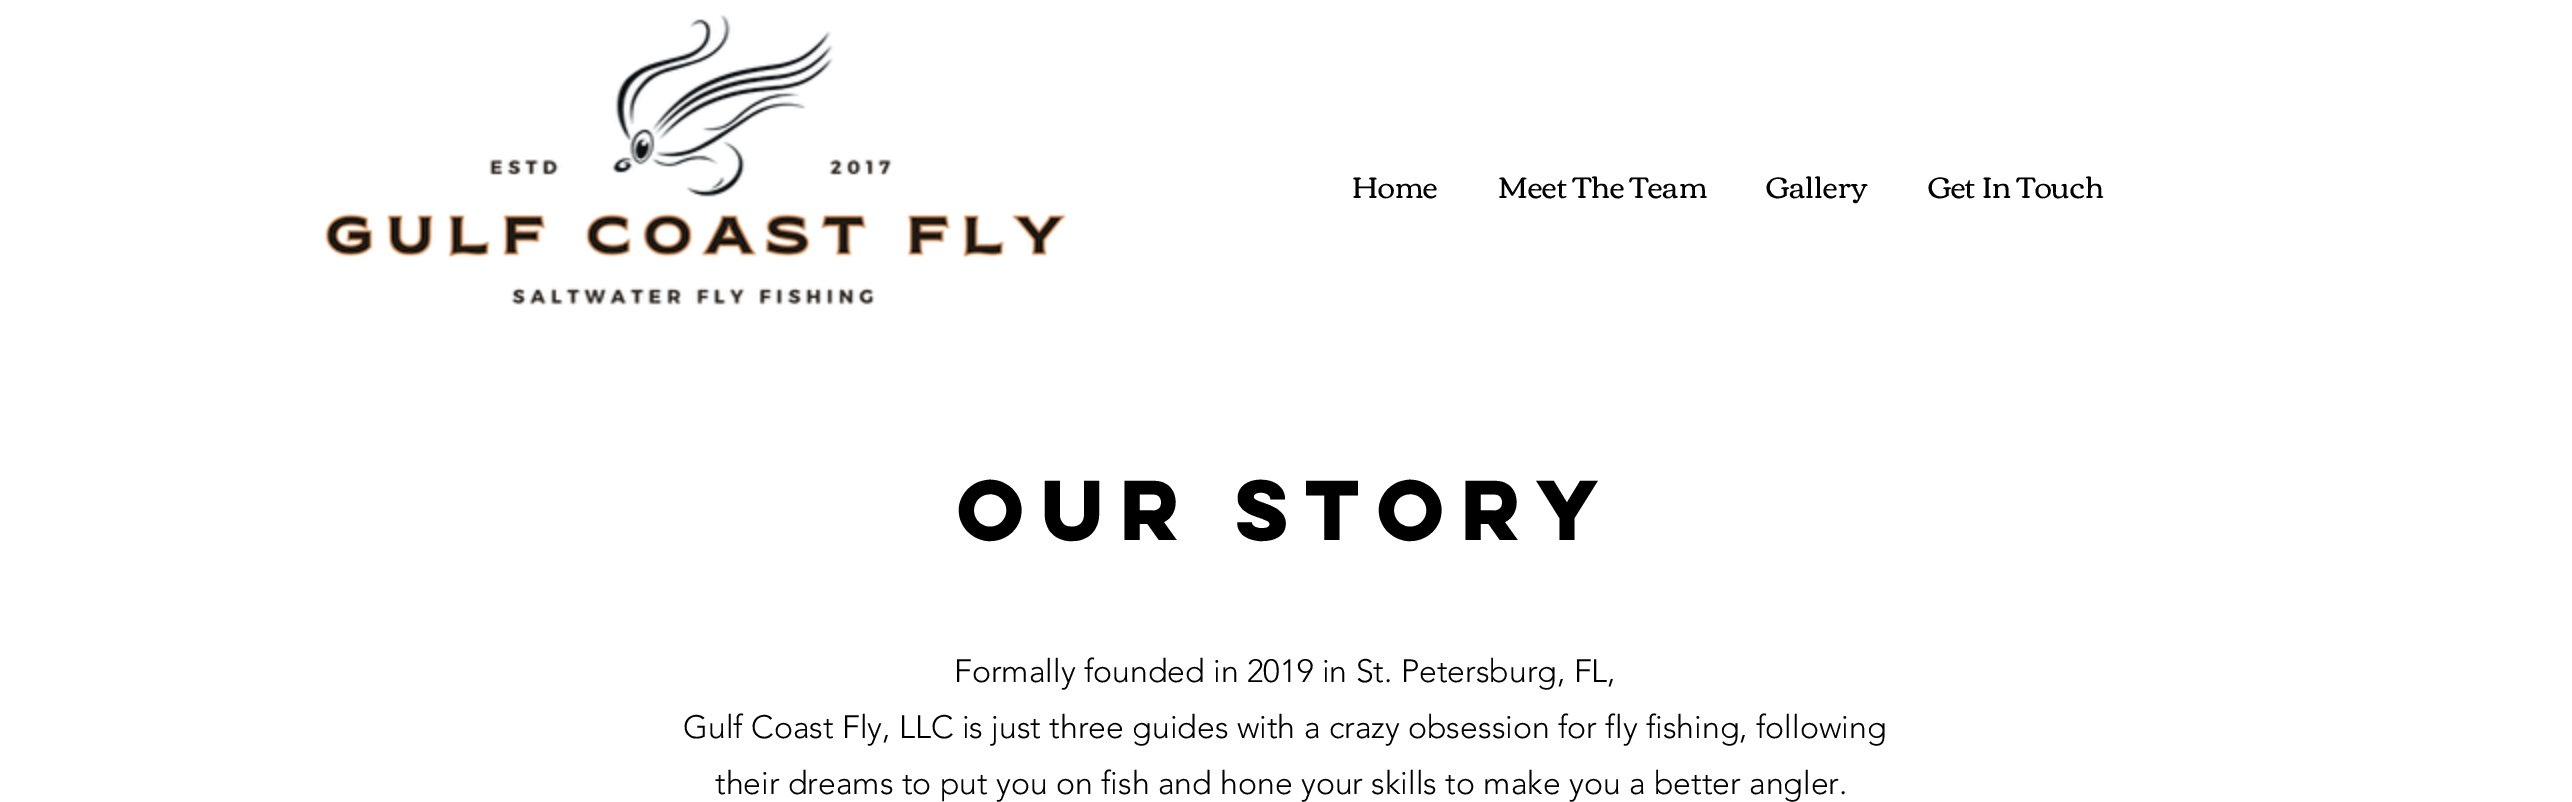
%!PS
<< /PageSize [2572 802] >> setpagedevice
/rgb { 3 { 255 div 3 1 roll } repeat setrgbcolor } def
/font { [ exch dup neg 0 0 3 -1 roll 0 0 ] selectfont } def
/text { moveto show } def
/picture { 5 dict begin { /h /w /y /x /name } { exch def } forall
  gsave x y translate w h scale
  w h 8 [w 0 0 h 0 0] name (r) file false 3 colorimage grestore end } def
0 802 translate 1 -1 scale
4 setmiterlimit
255 255 255 rgb
0 0 2572 802 rectfill
(img_01.rgb) 325 14 742 291 picture
/Corben-Regular 30 font
0 0 0 rgb
(Home) 1352 198 text
(Meet The Team) 1498 198 text
(Gallery) 1766 198 text
(Get In Touch) 1928 198 text
/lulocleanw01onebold-Bold 76 font
(Our Story) 957 540 text
/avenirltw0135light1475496-Light 32 font
(Formally founded in 2019 in St. Petersburg, FL,) 954 682 text
(Gulf Coast Fly, LLC is just three guides with a crazy obsession for fly fishing, following) 683 738 text
(their dreams to put you on fish and hone your skills to make you a better angler.) 715 794 text
showpage
